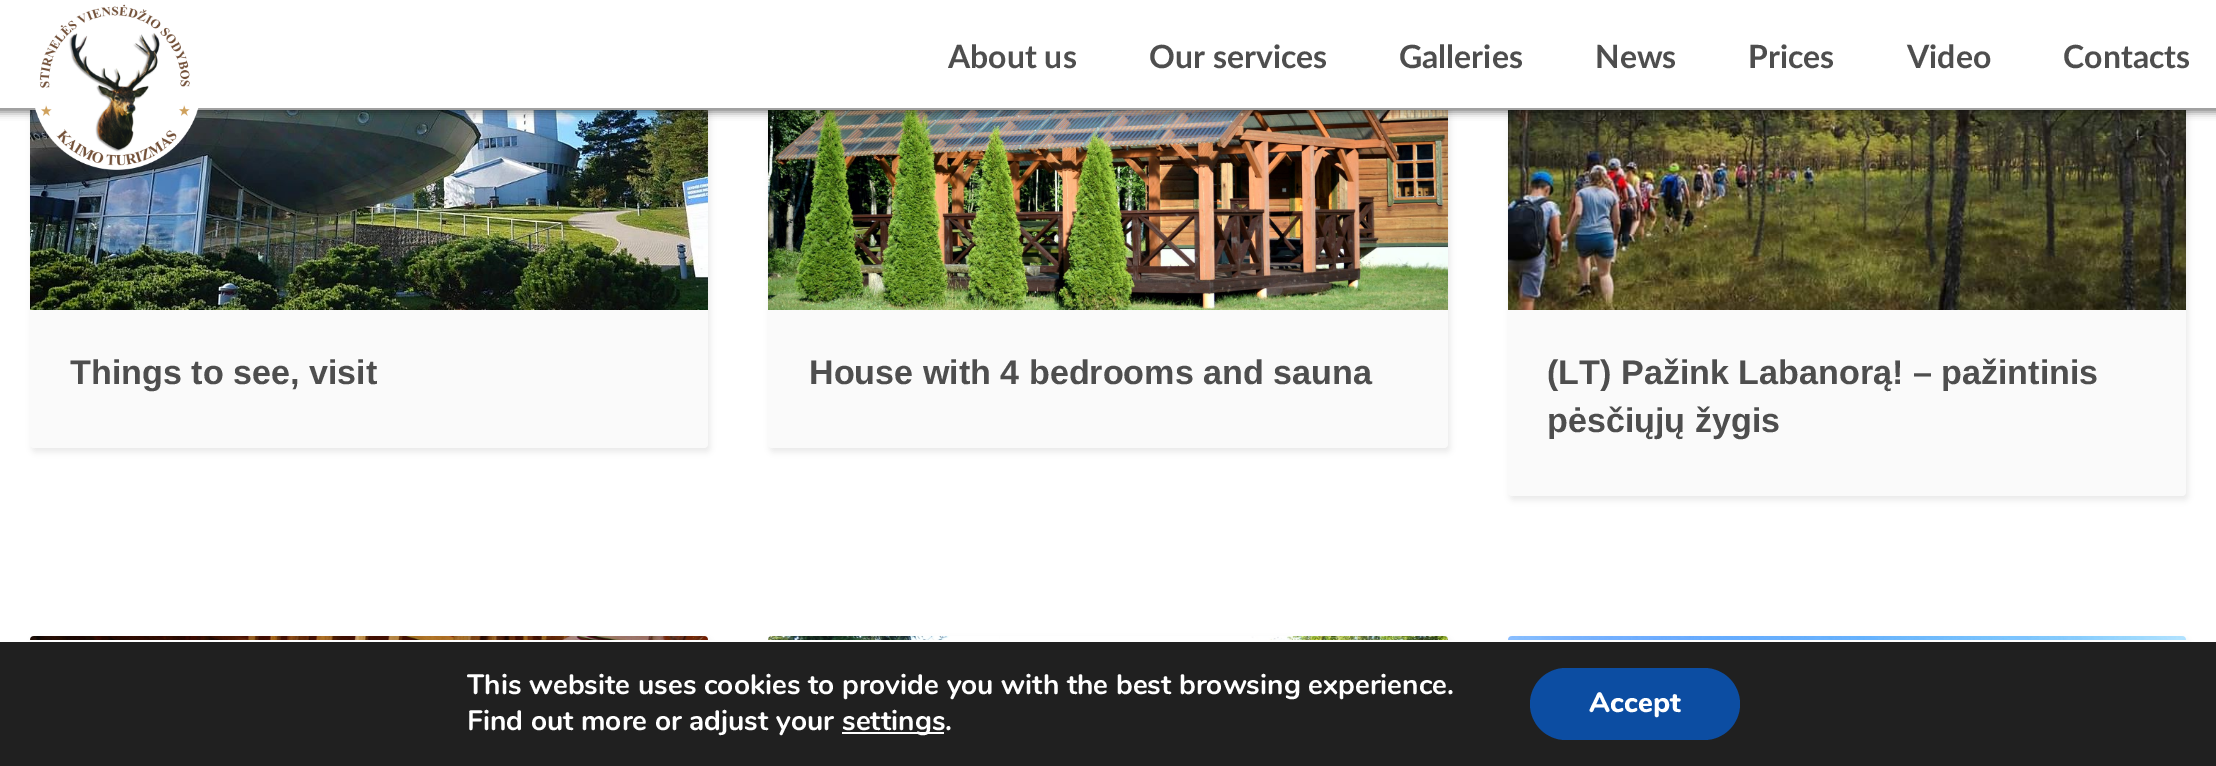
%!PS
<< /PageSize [2216 766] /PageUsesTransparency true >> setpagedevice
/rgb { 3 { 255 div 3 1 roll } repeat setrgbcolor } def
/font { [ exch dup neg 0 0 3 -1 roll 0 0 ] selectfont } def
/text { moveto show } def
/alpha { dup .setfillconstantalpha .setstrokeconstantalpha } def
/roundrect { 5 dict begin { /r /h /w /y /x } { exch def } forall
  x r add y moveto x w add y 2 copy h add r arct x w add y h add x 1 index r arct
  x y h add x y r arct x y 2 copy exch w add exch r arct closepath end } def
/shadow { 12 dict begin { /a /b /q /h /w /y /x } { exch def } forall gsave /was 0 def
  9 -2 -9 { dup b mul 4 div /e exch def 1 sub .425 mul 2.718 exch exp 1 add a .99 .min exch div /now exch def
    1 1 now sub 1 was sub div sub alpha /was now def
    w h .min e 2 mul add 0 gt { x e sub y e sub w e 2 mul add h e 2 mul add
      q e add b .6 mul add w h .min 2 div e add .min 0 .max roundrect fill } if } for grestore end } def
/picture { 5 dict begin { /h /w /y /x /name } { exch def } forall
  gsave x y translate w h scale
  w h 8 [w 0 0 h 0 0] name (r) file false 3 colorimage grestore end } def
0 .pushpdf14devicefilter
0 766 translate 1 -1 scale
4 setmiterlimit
255 255 255 rgb
0 0 2216 766 rectfill
233 233 233 rgb
32 -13 678 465 4 3 1 shadow
250 250 250 rgb
30 -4 678 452 4 roundrect fill
(img_02.rgb) 30 110 678 200 picture
233 233 233 rgb
770 -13 680 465 4 3 1 shadow
250 250 250 rgb
768 -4 680 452 4 roundrect fill
(img_03.rgb) 768 110 680 200 picture
233 233 233 rgb
1510 -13 678 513 4 3 1 shadow
250 250 250 rgb
1508 -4 678 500 4 roundrect fill
(img_04.rgb) 1508 110 678 200 picture
0 0 0 rgb
-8 -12 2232 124 0 4 0.5 shadow
255 255 255 rgb
0 0 2216 108 rectfill
161 161 161 rgb
0 108 2216 2 rectfill
(img_01.rgb) 35 4 164 166 picture
233 233 233 rgb
32 640 678 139 4 3 1 shadow
(img_05.rgb) 30 636 678 4 picture
770 640 680 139 4 3 1 shadow
(img_06.rgb) 768 636 680 4 picture
1510 640 678 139 4 3 1 shadow
(img_07.rgb) 1508 636 678 4 picture
32 32 32 rgb
0 642 2216 124 rectfill
255 255 255 rgb
30 640 2160 2 rectfill
842 732 102 2 rectfill
12 77 162 rgb
1530 668 210 72 36 roundrect fill
/Lato-Bold 32 font
78 78 78 rgb
(About us) 948 68 text
(Our services) 1149 68 text
(Galleries) 1399 68 text
(News) 1595 68 text
(Prices) 1748 68 text
(Video) 1907 68 text
(Contacts) 2063 68 text
/LiberationSans-Bold 34.1 font
(Things to see, visit) 70 384 text
(House with 4 bedrooms and sauna) 809 384 text
(\(LT\) Pažink Labanorą! – pažintinis) 1547 384 text
(pėsčiųjų žygis) 1547 432 text
/Nunito-Bold 28 font
255 255 255 rgb
(This website uses cookies to provide you with the best browsing experience.) 467 694 text
(Find out more or adjust your) 467 730 text
(settings.) 842 730 text
/Nunito-ExtraBold 28 font
(Accept) 1589 712 text
.poppdf14devicefilter showpage
